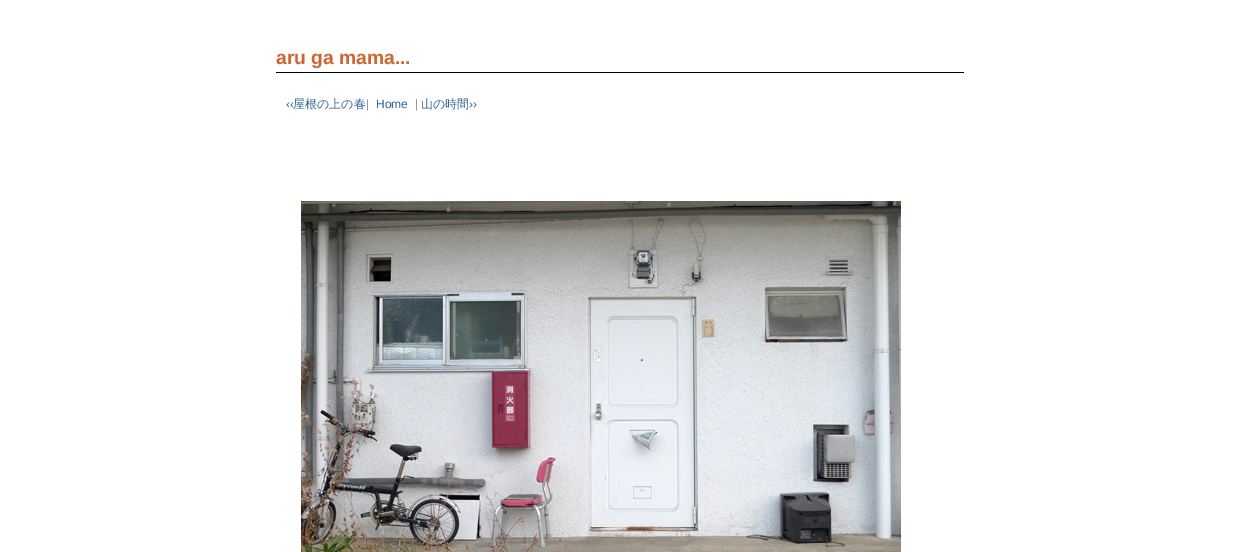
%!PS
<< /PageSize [1239 552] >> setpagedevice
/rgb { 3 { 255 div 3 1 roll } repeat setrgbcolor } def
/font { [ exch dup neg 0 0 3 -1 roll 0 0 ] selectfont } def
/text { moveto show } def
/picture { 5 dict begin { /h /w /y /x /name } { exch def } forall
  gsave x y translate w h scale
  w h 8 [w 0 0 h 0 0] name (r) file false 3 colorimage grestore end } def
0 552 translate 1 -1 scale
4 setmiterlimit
255 255 255 rgb
0 0 1239 552 rectfill
0 0 0 rgb
276 72 688 1 rectfill
(img_01.rgb) 301 201 600 351 picture
/LiberationSans-Bold 19.25 font
204 102 51 rgb
(aru ga mama...) 276 64 text
/LiberationSans-Regular 12 font
51 102 153 rgb
(‹‹) 286 108 text
/WenQuanYiZenHei-Medium 12 font
(屋根の上の春) 293 108 text
/LiberationSans-Regular 12 font
153 153 153 rgb
(|) 366 108 text
51 102 153 rgb
(Home) 376 108 text
153 153 153 rgb
(|) 415 108 text
/WenQuanYiZenHei-Medium 12 font
51 102 153 rgb
(山の時間) 421 108 text
/LiberationSans-Regular 12 font
(››) 469 108 text
showpage
